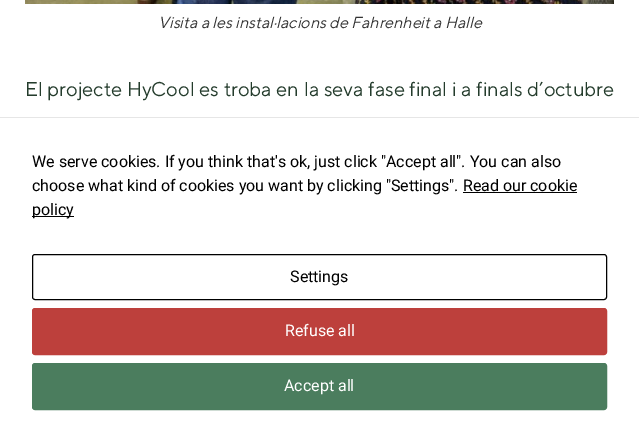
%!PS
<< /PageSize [639 442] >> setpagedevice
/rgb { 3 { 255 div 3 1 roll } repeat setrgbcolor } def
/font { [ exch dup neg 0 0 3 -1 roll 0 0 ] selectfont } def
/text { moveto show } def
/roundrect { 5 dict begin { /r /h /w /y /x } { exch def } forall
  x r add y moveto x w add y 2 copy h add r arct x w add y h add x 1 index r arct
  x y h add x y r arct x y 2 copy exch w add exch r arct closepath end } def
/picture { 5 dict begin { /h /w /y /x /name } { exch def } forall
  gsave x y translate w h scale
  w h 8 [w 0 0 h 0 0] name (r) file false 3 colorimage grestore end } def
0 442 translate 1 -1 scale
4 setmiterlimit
255 255 255 rgb
0 0 639 442 rectfill
(img_01.rgb) 25 0 589 4 picture
230 230 230 rgb
0 117 639 1 rectfill
0 0 0 rgb
463 192 114 1 rectfill
32 216 42 1 rectfill
32.5 254.5 574 45 2.5 roundrect stroke
189 64 60 rgb
32.5 308.5 574 46 2.5 roundrect gsave fill grestore
stroke
75 125 94 rgb
32.5 363.5 574 46 2.5 roundrect gsave fill grestore
stroke
/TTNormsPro-Italic 16 font
51 51 51 rgb
(Visita a les instal·lacions de Fahrenheit a Halle) 158 28 text
/TTNormsPro-Regular 20 font
36 60 44 rgb
25 96 moveto 0.5 0 32 (El projecte HyCool es troba en la seva fase final i a finals d’octubre) widthshow
/Roboto-Regular 16 font
0 0 0 rgb
(We serve cookies. If you think that's ok, just click "Accept all". You can also) 32 167 text
(choose what kind of cookies you want by clicking "Settings". Read our cookie) 32 191 text
(policy) 32 215 text
(Settings) 290 282 text
255 255 255 rgb
(Refuse all) 285 336 text
(Accept all) 284 391 text
showpage
